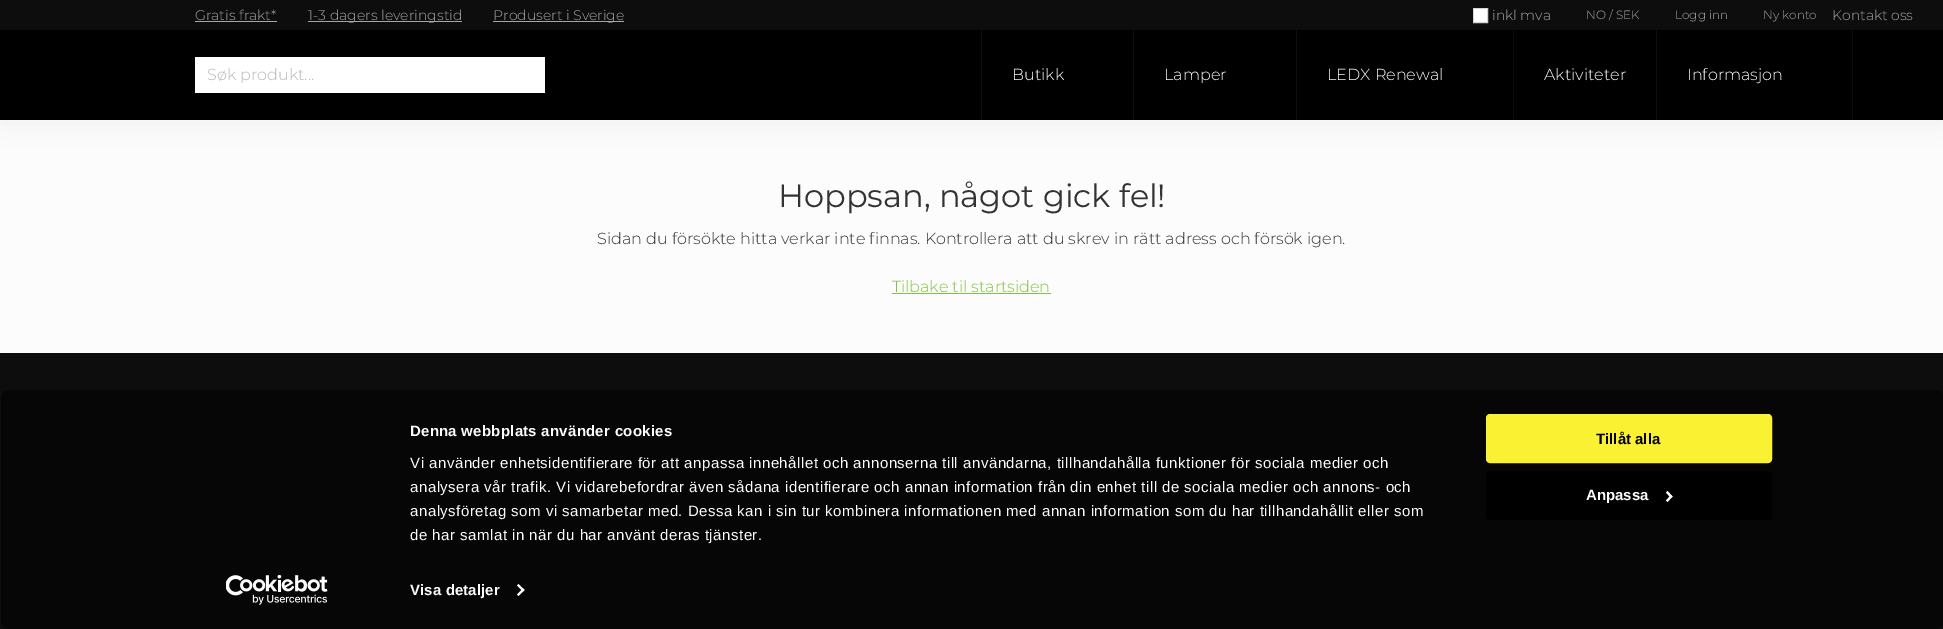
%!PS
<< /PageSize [1943 629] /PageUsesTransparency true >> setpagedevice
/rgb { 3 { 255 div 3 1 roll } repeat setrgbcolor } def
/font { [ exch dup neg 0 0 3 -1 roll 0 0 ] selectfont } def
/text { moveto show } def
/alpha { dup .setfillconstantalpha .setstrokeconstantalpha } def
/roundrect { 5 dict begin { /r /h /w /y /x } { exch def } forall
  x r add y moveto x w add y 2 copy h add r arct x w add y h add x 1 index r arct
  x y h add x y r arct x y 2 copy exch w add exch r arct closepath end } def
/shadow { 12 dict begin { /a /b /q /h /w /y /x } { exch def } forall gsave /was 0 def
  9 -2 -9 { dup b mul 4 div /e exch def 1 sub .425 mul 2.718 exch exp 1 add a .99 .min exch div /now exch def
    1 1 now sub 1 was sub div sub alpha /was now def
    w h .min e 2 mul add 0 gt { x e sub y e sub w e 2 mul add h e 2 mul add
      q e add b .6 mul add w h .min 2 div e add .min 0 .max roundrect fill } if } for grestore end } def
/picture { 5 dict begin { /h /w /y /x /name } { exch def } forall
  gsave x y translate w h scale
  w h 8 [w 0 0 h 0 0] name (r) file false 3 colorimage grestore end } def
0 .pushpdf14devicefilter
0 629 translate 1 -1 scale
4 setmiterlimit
252 252 252 rgb
0 0 1943 629 rectfill
0 0 0 rgb
0 3 1943 120 0 15 0.05 shadow
0 30 1943 90 rectfill
13 13 13 rgb
0 0 1943 30 rectfill
166 166 166 rgb
195 21 82 1 rectfill
308 21 154 1 rectfill
493 21 131 1 rectfill
213 213 213 rgb
1473.5 8.5 14 14 rectstroke
255 255 255 rgb
1474 9 13 13 rectfill
195 57 350 36 rectfill
13 13 13 rgb
981 30 1 90 rectfill
1133 30 1 90 rectfill
1296 30 1 90 rectfill
1513 30 1 90 rectfill
1656 30 1 90 rectfill
1852 30 1 90 rectfill
128 194 65 rgb
892 293 159 1 rectfill
13 13 13 rgb
0 353 1943 276 rectfill
6 6 6 rgb
1 390 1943 239 8 roundrect fill
255 255 255 rgb
518.5 584 moveto 6 6 rlineto -1.5 1.5 rlineto -6 -6 rlineto closepath fill
523 588.5 moveto 1.5 1.5 rlineto -6 6 rlineto -1.5 -1.5 rlineto closepath fill
250 241 51 rgb
1487 415 284 47 3 roundrect gsave fill grestore
2 setlinewidth
stroke
0 0 0 rgb
1486 471 286 49 4 roundrect fill
255 255 255 rgb
1667.5 491 moveto 5 5.5 rlineto -1.5 1.5 rlineto -5 -5.5 rlineto closepath fill
1671 495 moveto 1.5 1.5 rlineto -5 5.5 rlineto -1.5 -1.5 rlineto closepath fill
(img_01.rgb) 226 575 102 30 picture
/Montserrat-Light 14 font
166 166 166 rgb
(Gratis frakt*) 195 20 text
(1-3 dagers leveringstid) 308 20 text
(Produsert i Sverige) 493 20 text
(inkl mva) 1492 20 text
/Montserrat-Light 12 font
(NO / SEK) 1586 19 text
(Logg inn) 1675 19 text
(Ny konto) 1763 19 text
/Montserrat-Light 14 font
(Kontakt oss) 1832 20 text
/Montserrat-Light 16 font
184 184 184 rgb
(Søk produkt...) 207 80 text
252 252 252 rgb
(Butikk) 1012 80 text
(Lamper) 1164 80 text
(LEDX Renewal) 1327 80 text
(Aktiviteter) 1544 80 text
(Informasjon) 1687 80 text
/Montserrat-Regular 32 font
51 51 51 rgb
(Hoppsan, något gick fel!) 778 207 text
/Montserrat-Light 16 font
(Sidan du försökte hitta verkar inte finnas. Kontrollera att du skrev in rätt adress och försök igen.) 597 244 text
128 194 65 rgb
(Tilbake til startsiden) 892 292 text
/LiberationSans-Bold 15 font
252 252 252 rgb
410 436 moveto 0.25 0 (Denna webbplats använder cookies) ashow
/LiberationSans-Regular 15 font
410 468 moveto 0.5 0 (Vi använder enhetsidentifierare för att anpassa innehållet och annonserna till användarna, tillhandahålla funktioner för sociala medier och) ashow
410 492 moveto 0.5 0 (analysera vår trafik. Vi vidarebefordrar även sådana identifierare och annan information från din enhet till de sociala medier och annons- och) ashow
410 516 moveto 0.5 0 (analysföretag som vi samarbetar med. Dessa kan i sin tur kombinera informationen med annan information som du har tillhandahållit eller som) ashow
410 540 moveto 0.5 0 (de har samlat in när du har använt deras tjänster.) ashow
/LiberationSans-Bold 15 font
410 595 moveto 0.1 0 (Visa detaljer) ashow
0 0 0 rgb
(Tillåt alla) 1596 444 text
252 252 252 rgb
(Anpassa) 1586 500 text
.poppdf14devicefilter showpage
